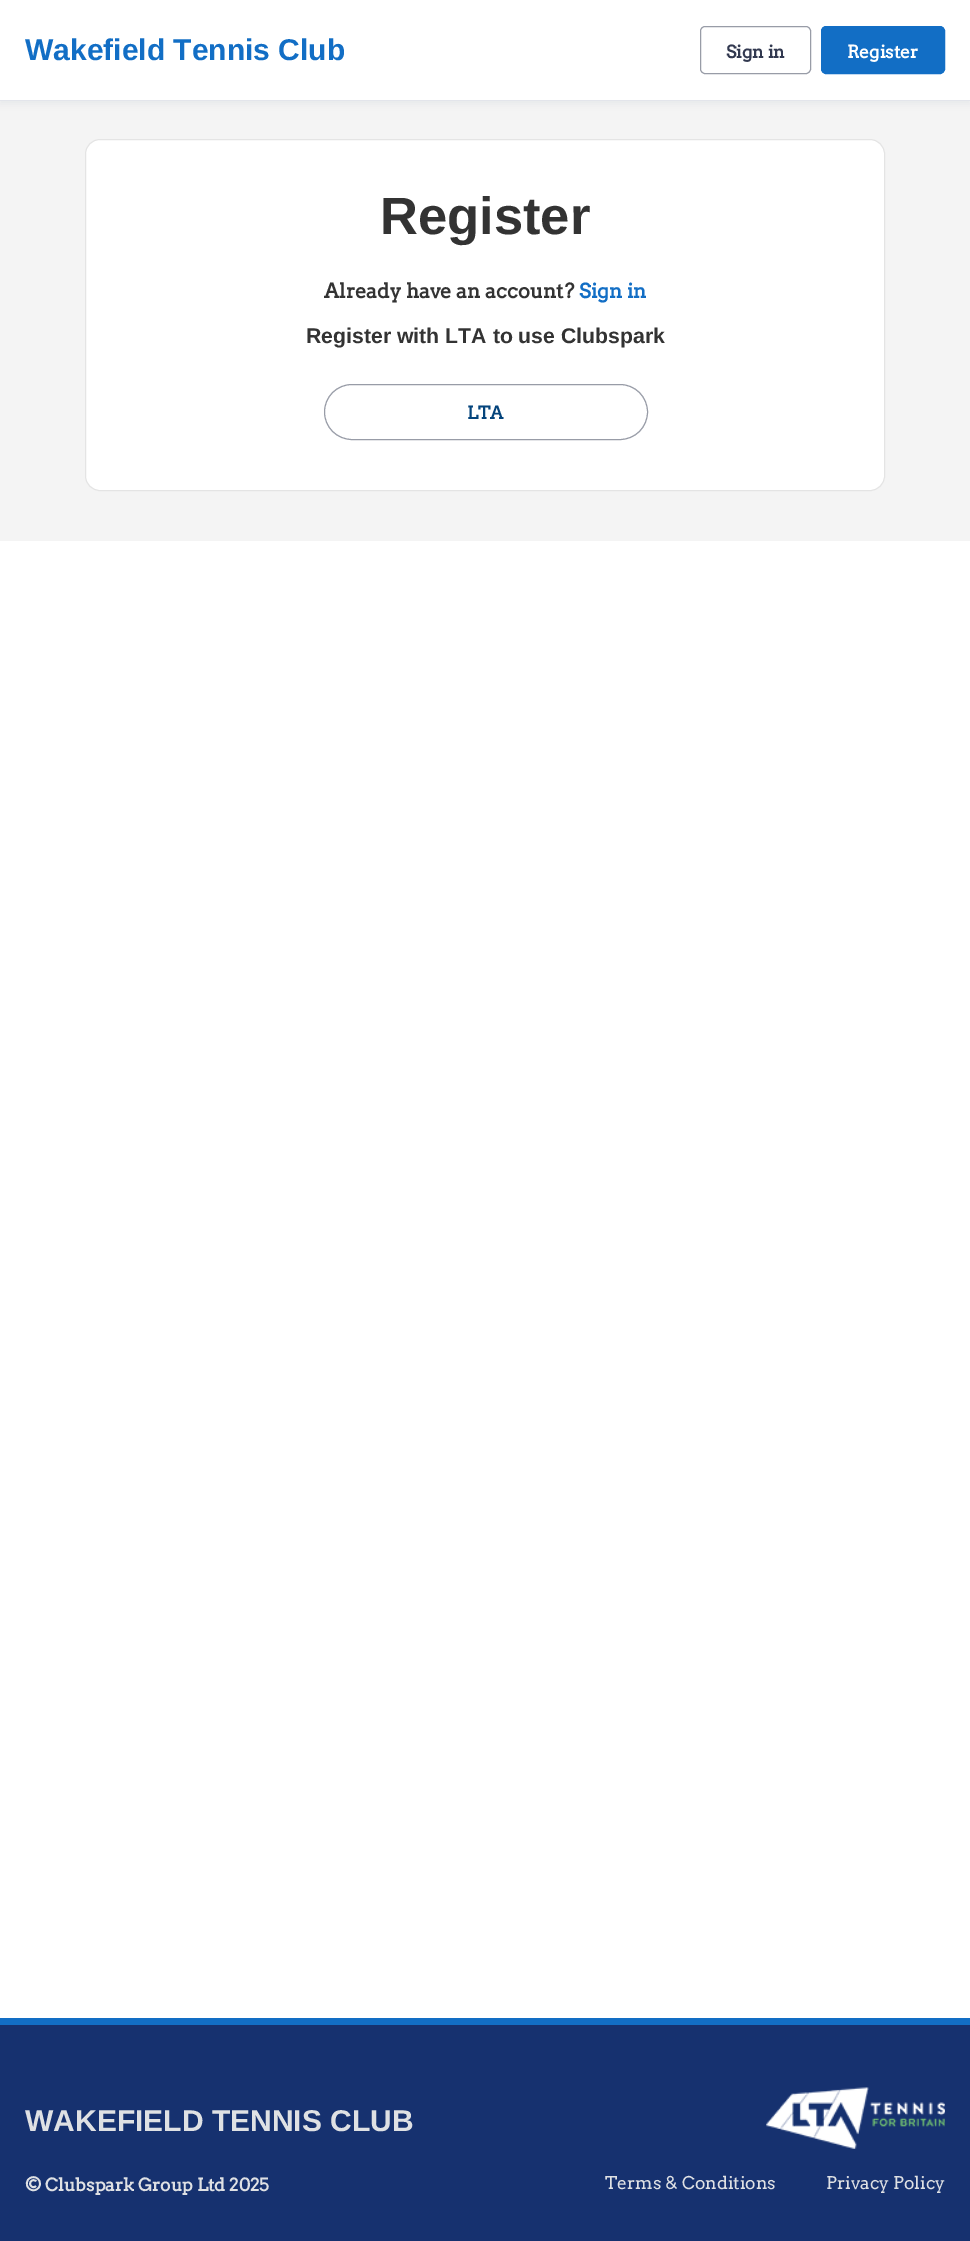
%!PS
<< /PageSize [970 2241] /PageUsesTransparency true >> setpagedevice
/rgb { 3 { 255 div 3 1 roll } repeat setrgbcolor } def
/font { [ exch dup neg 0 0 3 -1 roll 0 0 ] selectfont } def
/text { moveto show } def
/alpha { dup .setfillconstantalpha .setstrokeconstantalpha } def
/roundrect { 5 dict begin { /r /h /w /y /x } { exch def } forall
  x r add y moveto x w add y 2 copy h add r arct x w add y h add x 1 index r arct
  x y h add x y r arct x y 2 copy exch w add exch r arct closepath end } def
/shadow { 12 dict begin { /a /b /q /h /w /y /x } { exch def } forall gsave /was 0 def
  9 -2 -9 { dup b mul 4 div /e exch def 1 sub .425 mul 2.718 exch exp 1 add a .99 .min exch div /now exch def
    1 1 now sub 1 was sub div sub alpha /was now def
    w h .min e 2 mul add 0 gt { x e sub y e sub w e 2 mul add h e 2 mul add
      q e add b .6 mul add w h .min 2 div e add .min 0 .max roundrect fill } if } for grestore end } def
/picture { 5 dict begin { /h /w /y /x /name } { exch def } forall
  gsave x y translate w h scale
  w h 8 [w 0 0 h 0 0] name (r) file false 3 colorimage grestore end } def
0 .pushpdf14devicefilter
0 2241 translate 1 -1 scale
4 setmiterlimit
255 255 255 rgb
0 0 970 2241 rectfill
244 244 244 rgb
0 101 970 440 rectfill
20 29 55 rgb
0 3 970 101 0 4 0.06 shadow
255 255 255 rgb
0 0 970 100 rectfill
152 156 167 rgb
700.5 26.5 110 47 4.5 roundrect stroke
18 110 197 rgb
821.5 26.5 123 47 4.5 roundrect gsave fill grestore
stroke
227 229 235 rgb
0 100 970 1 rectfill
255 255 255 rgb
85.5 139.5 799 351 14.5 roundrect gsave fill grestore
228 228 228 rgb
stroke
152 156 167 rgb
324.5 384.5 323 55 27.5 roundrect stroke
22 49 111 rgb
0 2025 970 216 rectfill
18 110 197 rgb
0 2018 970 7 rectfill
(img_01.rgb) 766 2087 179 62 picture
/LiberationSans-Bold 30 font
(Wakefield Tennis Club) 25 60 text
/Arvo-Bold 17.5 font
50 57 80 rgb
(Sign in) 726 58 text
255 255 255 rgb
(Register) 847 58 text
/LiberationSans-Bold 52.5 font
51 51 51 rgb
(Register) 380 234 text
/Arvo-Bold 20 font
(Already have an account?) 324 298 text
18 110 197 rgb
(Sign in) 579 298 text
/LiberationSans-Bold 21.25 font
51 51 51 rgb
(Register with LTA to use Clubspark) 306 343 text
/Arvo-Bold 17.5 font
4 68 124 rgb
(LTA) 467 419 text
/LiberationSans-Bold 30 font
223 225 228 rgb
(WAKEFIELD TENNIS CLUB) 25 2131 text
/Arvo-Bold 17.5 font
(© Clubspark Group Ltd 2025) 25 2191 text
/Arvo-Regular 17.5 font
(Terms & Conditions) 605 2189 text
(Privacy Policy) 826 2189 text
.poppdf14devicefilter showpage
